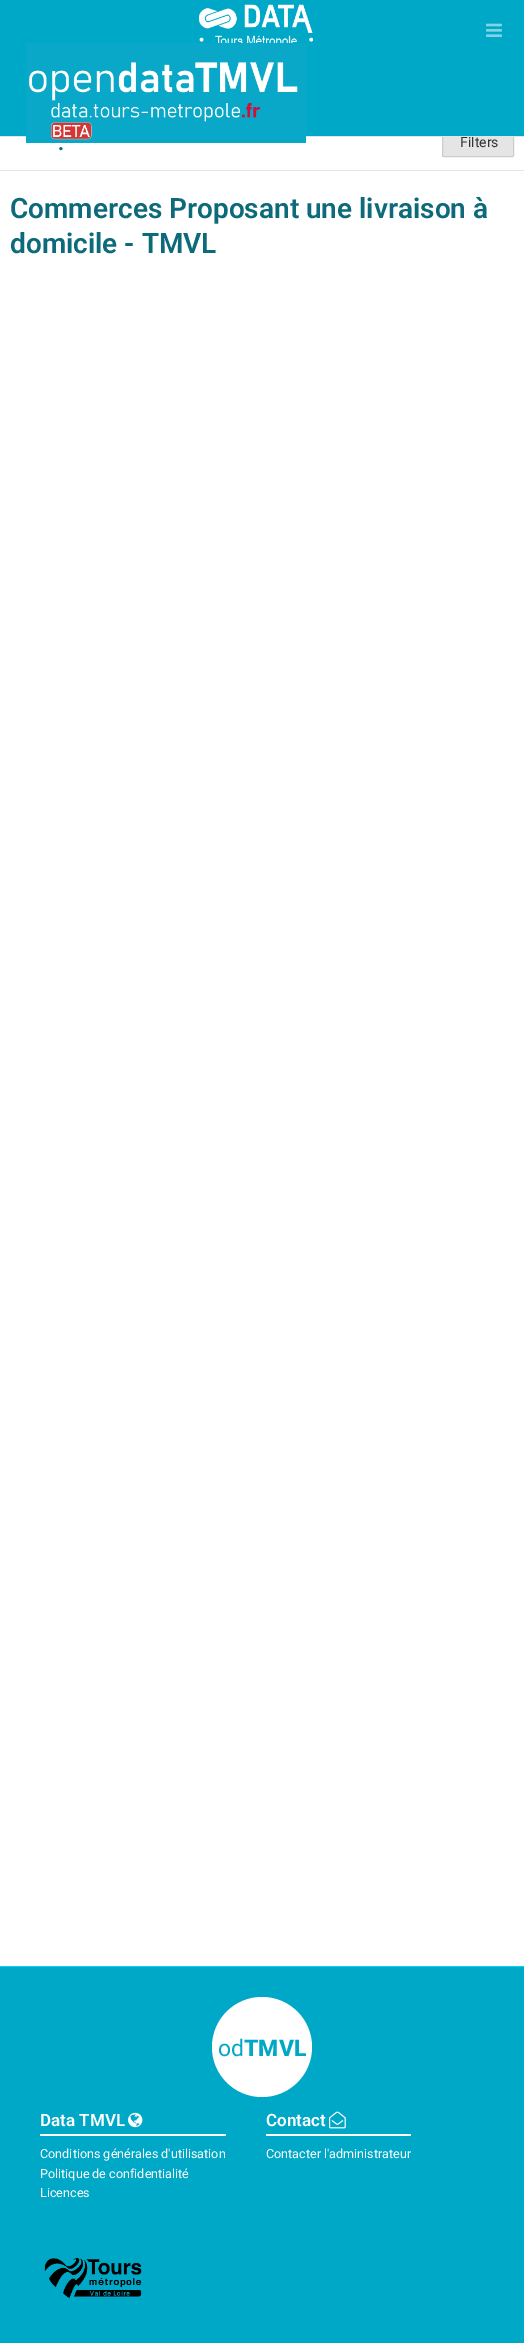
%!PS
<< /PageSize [524 2343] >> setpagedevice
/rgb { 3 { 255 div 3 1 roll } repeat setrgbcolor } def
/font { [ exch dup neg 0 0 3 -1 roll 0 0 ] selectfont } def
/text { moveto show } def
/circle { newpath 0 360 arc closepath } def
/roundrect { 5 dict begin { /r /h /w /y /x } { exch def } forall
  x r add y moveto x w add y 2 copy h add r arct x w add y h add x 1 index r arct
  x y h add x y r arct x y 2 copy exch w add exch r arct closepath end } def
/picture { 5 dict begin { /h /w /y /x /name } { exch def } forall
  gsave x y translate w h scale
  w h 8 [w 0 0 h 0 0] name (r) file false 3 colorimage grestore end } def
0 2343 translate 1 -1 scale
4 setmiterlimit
255 255 255 rgb
0 0 524 2343 rectfill
229 229 229 rgb
442.5 127.5 71 29 1 roundrect gsave fill grestore
204 204 204 rgb
stroke
0 168 199 rgb
0 0 524 136 rectfill
(img_01.rgb) 199 4 114 39 picture
(img_02.rgb) 486 23 16 14 picture
229 229 229 rgb
0 170 524 1 rectfill
0 168 199 rgb
0 1967 524 376 rectfill
0 211 250 rgb
0 1966 524 1 rectfill
255 255 255 rgb
262 2047 50 circle fill
40 2134 186 2 rectfill
(img_04.rgb) 128 2112 15 16 picture
266 2134 145 2 rectfill
(img_05.rgb) 329 2111 17 18 picture
(img_06.rgb) 44 2257 98 41 picture
/Roboto-Regular 14 font
51 51 51 rgb
(Filters) 460 147 text
222 229 239 rgb
0 136 524 1 rectfill
(img_03.rgb) 26 43 280 100 picture
/Roboto-Bold 21 font
12 106 122 rgb
(.) 58 150 text
/Roboto-SemiBold 28 font
(Commerces Proposant une livraison à) 10 218 text
(domicile - TMVL) 10 253 text
/Roboto-Regular 23 font
0 168 199 rgb
(od) 218 2056 text
/Roboto-ExtraBold 23 font
(TMVL) 244 2056 text
/Roboto-SemiBold 17 font
255 255 255 rgb
(Data TMVL) 40 2126 text
/Roboto-Regular 12.6 font
(Conditions générales d'utilisation) 40 2158 text
(Politique de confidentialité) 40 2178 text
(Licences) 40 2197 text
/Roboto-SemiBold 17 font
(Contact) 266 2126 text
/Roboto-Regular 12.6 font
(Contacter l'administrateur) 266 2158 text
showpage
